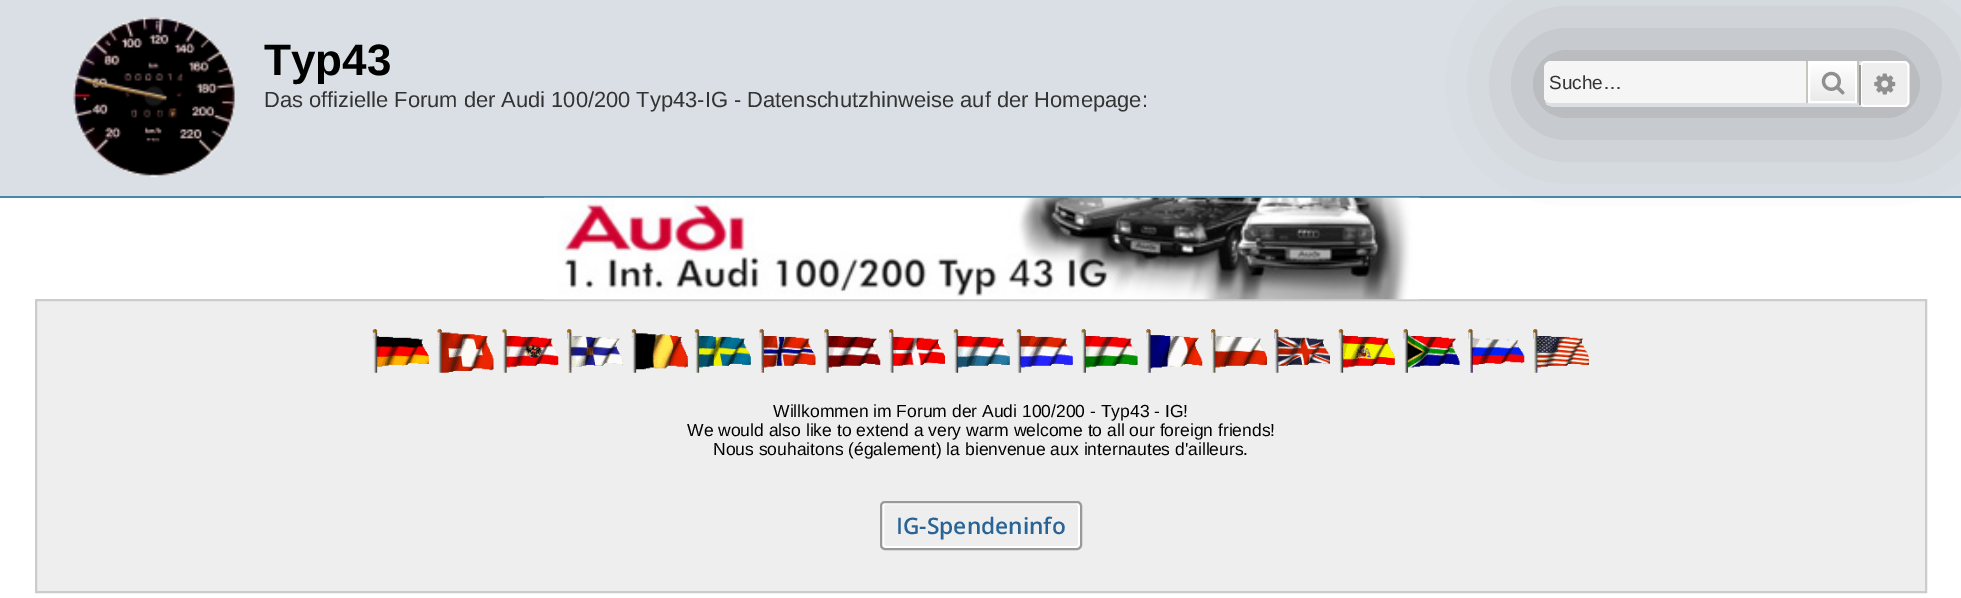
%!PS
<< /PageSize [1961 598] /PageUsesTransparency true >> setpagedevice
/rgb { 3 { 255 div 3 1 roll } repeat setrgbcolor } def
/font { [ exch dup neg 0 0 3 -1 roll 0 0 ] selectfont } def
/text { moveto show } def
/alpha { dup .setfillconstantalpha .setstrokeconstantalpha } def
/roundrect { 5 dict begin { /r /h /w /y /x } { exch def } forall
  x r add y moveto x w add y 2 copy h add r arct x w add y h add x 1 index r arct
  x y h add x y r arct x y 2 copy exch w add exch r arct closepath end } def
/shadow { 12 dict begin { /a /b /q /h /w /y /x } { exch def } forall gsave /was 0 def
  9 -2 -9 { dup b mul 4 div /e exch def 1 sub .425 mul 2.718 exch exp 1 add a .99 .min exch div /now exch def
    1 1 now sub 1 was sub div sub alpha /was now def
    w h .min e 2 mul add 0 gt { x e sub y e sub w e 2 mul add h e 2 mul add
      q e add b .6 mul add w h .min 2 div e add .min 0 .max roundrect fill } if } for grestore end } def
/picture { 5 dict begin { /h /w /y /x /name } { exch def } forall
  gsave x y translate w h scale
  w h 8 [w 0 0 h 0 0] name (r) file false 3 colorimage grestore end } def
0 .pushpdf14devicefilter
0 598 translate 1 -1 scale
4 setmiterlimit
255 255 255 rgb
0 0 1961 598 rectfill
217 223 228 rgb
0 0 1961 196 rectfill
71 135 167 rgb
0 196 1961 2 rectfill
(img_01.rgb) 73 17 162 161 picture
gsave
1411 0 moveto 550 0 rlineto 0 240 rlineto -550 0 rlineto closepath 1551 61 moveto 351 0 rlineto 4 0 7 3 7 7 rcurveto 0 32 rlineto 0 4 -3 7 -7 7 rcurveto -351 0 rlineto -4 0 -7 -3 -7 -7 rcurveto 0 -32 rlineto 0 -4 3 -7 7 -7 rcurveto closepath eoclip newpath
153 153 153 rgb
1544 61 365 46 7 44 1 shadow
grestore
245 245 245 rgb
1551 61 moveto 255 0 rlineto 0 42 rlineto -255 0 rlineto -4 0 -7 -3 -7 -7 rcurveto 0 -28 rlineto 0 -4 3 -7 7 -7 rcurveto closepath fill
gsave 1810 63 moveto 45 0 rlineto 0 38 rlineto -45 0 rlineto closepath clip newpath
<< /ShadingType 2 /ColorSpace /DeviceRGB /Coords [1832 61 1832 103] /Extend [true true] /Function << /FunctionType 2 /Domain [0 1] /C0 [1 1 1] /C1 [0.914 0.914 0.914] /N 1 >> >> shfill grestore
255 255 255 rgb
2 setlinewidth
1809 62 47 40 rectstroke
199 195 191 rgb
1857 61 2 42 rectfill
1806 61 2 42 rectfill
(img_02.rgb) 1821 71 24 24 picture
238 238 238 rgb
1864 61 moveto 40 0 rlineto 3 0 5 3 5 5 rcurveto 0 36 rlineto 0 2 -2 5 -5 5 rcurveto -40 0 rlineto -2 0 -4 -3 -4 -5 rcurveto 0 -36 rlineto 0 -2 2 -5 4 -5 rcurveto closepath fill
255 255 255 rgb
1.8 setlinewidth
1864 62 moveto 40 0 rlineto 2.5 0 4.5 2 4.5 4.5 rcurveto 0 35 rlineto 0 2.5 -2 4.5 -4.5 4.5 rcurveto -40 0 rlineto -1.5 0 -3 -2 -3 -4.5 rcurveto 0 -35 rlineto 0 -2.5 1.5 -4.5 3 -4.5 rcurveto closepath stroke
153 153 153 rgb
1859 65 2 40 rectfill
(img_03.rgb) 1874 73 22 22 picture
238 238 238 rgb
36 300 moveto 1890 0 rlineto 0 292 rlineto -1890 0 rlineto closepath gsave fill grestore
204 204 204 rgb
2 setlinewidth
stroke
(img_04.rgb) 544 197 876 103 picture
(img_05.rgb) 372 329 57 44 picture
(img_06.rgb) 437 329 57 44 picture
(img_07.rgb) 502 329 57 44 picture
(img_08.rgb) 567 329 56 44 picture
(img_09.rgb) 631 329 57 44 picture
(img_10.rgb) 694 329 57 44 picture
(img_11.rgb) 759 329 57 44 picture
(img_12.rgb) 824 329 57 44 picture
(img_13.rgb) 889 329 56 44 picture
(img_14.rgb) 953 329 57 44 picture
(img_15.rgb) 1016 329 57 44 picture
(img_16.rgb) 1081 329 57 44 picture
(img_17.rgb) 1146 329 57 44 picture
(img_18.rgb) 1211 329 56 44 picture
(img_19.rgb) 1274 329 56 44 picture
(img_20.rgb) 1338 329 57 44 picture
(img_21.rgb) 1403 329 57 44 picture
(img_22.rgb) 1468 329 57 44 picture
(img_23.rgb) 1533 329 56 44 picture
255 255 255 rgb
883 503 196 44 3 roundrect stroke
153 153 153 rgb
881 502 200 47 4 roundrect stroke
/LiberationSans-Bold 44 font
0 0 0 rgb
(Typ43) 264 75 text
/LiberationSans-Regular 21.9 font
51 51 51 rgb
(Das offizielle Forum der Audi 100/200 Typ43-IG - Datenschutzhinweise auf der Homepage:) 264 107 text
/LiberationSans-Regular 19 font
(Suche…) 1549 89 text
/LiberationSans-Regular 17.5 font
0 0 0 rgb
(Willkommen im Forum der Audi 100/200 - Typ43 - IG!) 773 417 text
(We would also like to extend a very warm welcome to all our foreign friends!) 687 436 text
(Nous souhaitons \(également\) la bienvenue aux internautes d'ailleurs.) 713 455 text
/OpenSans-SemiBold 22.75 font
42 100 150 rgb
(IG-Spendeninfo) 896 534 text
.poppdf14devicefilter showpage
